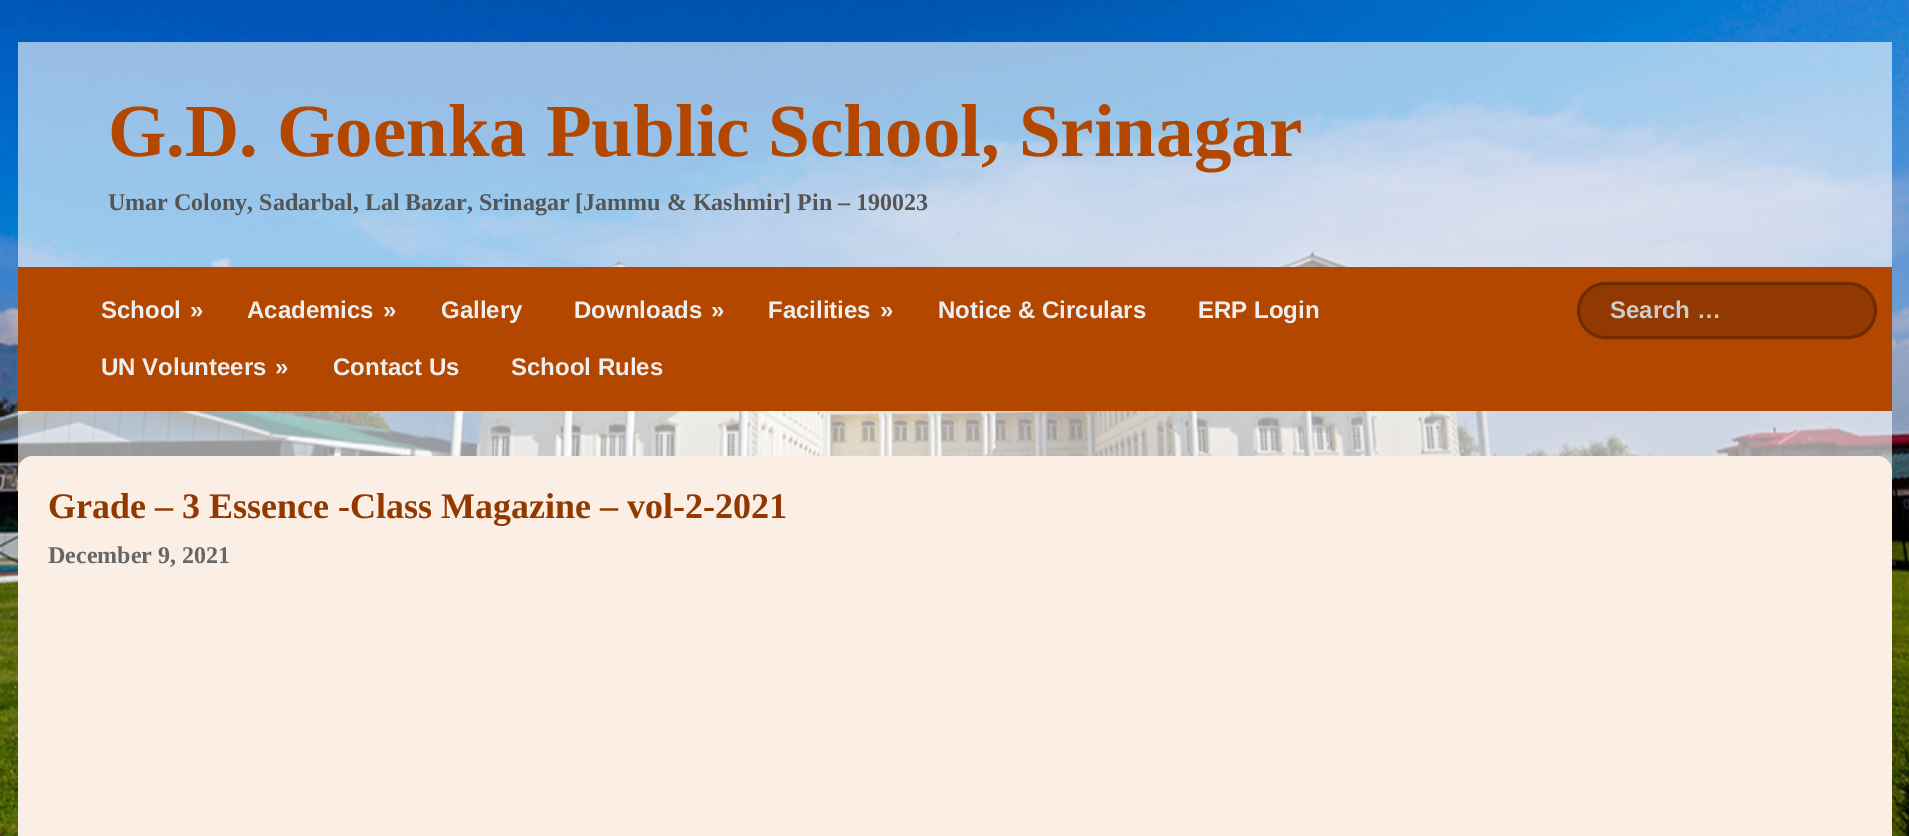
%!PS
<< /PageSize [1909 836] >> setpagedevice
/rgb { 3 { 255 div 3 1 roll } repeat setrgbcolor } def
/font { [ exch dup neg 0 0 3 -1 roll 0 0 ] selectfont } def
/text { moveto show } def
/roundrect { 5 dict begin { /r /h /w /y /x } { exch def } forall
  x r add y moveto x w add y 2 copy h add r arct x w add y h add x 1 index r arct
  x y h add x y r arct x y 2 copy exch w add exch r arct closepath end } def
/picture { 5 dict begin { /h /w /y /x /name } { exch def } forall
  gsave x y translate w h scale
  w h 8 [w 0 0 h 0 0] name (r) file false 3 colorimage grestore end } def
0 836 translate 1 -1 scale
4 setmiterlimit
255 255 255 rgb
0 0 1909 836 rectfill
(img_01.rgb) 0 0 1909 836 picture
179 71 0 rgb
18 267 1874 144 rectfill
145 57 0 rgb
1578.5 283.5 297 54 27 roundrect gsave fill grestore
112 44 0 rgb
3 setlinewidth
stroke
251 238 229 rgb
18 456 1874 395 15 roundrect fill
/LiberationSerif-Bold 75 font
179 71 0 rgb
(G.D. Goenka Public School, Srinagar) 108 156 text
/LiberationSerif-Bold 24 font
85 85 85 rgb
(Umar Colony, Sadarbal, Lal Bazar, Srinagar [Jammu & Kashmir] Pin – 190023) 108 210 text
/LiberationSans-Bold 24 font
238 238 238 rgb
(School) 101 318 text
(») 190 318 text
(Academics) 247 318 text
(») 383 318 text
(Gallery) 441 318 text
(Downloads) 574 318 text
(») 711 318 text
(Facilities) 768 318 text
(») 880 318 text
(Notice & Circulars) 938 318 text
(ERP Login) 1198 318 text
(UN Volunteers) 101 375 text
(») 275 375 text
(Contact Us) 333 375 text
(School Rules) 511 375 text
204 204 204 rgb
(Search …) 1610 318 text
/LiberationSerif-Bold 36 font
145 57 0 rgb
(Grade – 3 Essence -Class Magazine – vol-2-2021) 48 518 text
/LiberationSerif-Bold 24 font
102 102 102 rgb
(December 9, 2021) 48 563 text
showpage
